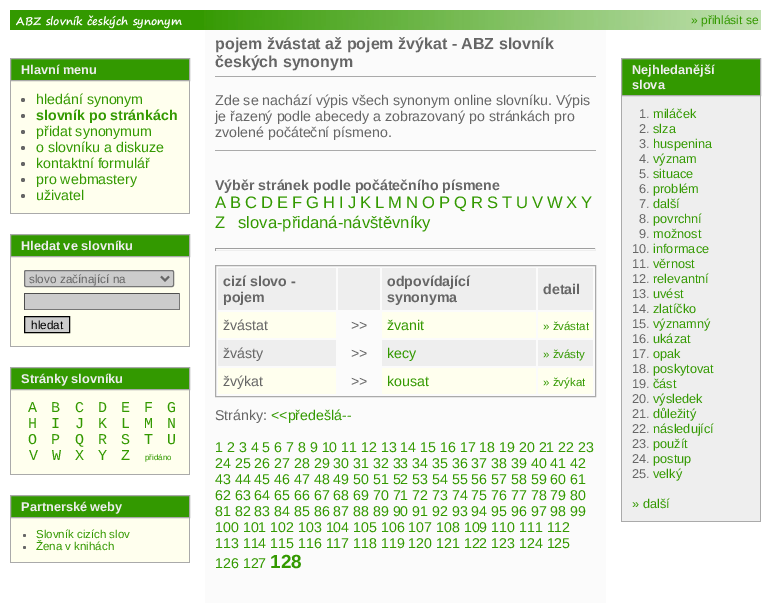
%!PS
<< /PageSize [771 603] >> setpagedevice
/rgb { 3 { 255 div 3 1 roll } repeat setrgbcolor } def
/font { [ exch dup neg 0 0 3 -1 roll 0 0 ] selectfont } def
/text { moveto show } def
/circle { newpath 0 360 arc closepath } def
/roundrect { 5 dict begin { /r /h /w /y /x } { exch def } forall
  x r add y moveto x w add y 2 copy h add r arct x w add y h add x 1 index r arct
  x y h add x y r arct x y 2 copy exch w add exch r arct closepath end } def
/picture { 5 dict begin { /h /w /y /x /name } { exch def } forall
  gsave x y translate w h scale
  w h 8 [w 0 0 h 0 0] name (r) file false 3 colorimage grestore end } def
0 603 translate 1 -1 scale
4 setmiterlimit
255 255 255 rgb
0 0 771 603 rectfill
(img_01.rgb) 10 10 180 20 picture
51 153 0 rgb
190 10 14 20 rectfill
(img_02.rgb) 204 10 557 20 picture
251 251 251 rgb
205 30 401 573 rectfill
170 170 170 rgb
215 76 381 1 rectfill
215 150 381 1 rectfill
159 159 159 rgb
215 248 381 1 rectfill
238 238 238 rgb
595 248 1 3 rectfill
215 250 381 1 rectfill
159 159 159 rgb
215 248 1 3 rectfill
170 170 170 rgb
215.5 265.5 380 131 rectstroke
238 238 238 rgb
218 268 118 42 rectfill
338 268 42 42 rectfill
382 268 154 42 rectfill
538 268 55 42 rectfill
255 255 238 rgb
218 312 118 26 rectfill
382 312 154 26 rectfill
538 312 55 26 rectfill
238 238 238 rgb
218 340 118 26 rectfill
382 340 154 26 rectfill
538 340 55 26 rectfill
255 255 238 rgb
218 368 118 26 rectfill
382 368 154 26 rectfill
538 368 55 26 rectfill
11 81 178 132 rectfill
51 153 0 rgb
10.5 58.5 moveto 179 0 rlineto 0 22 rlineto -179 0 rlineto closepath gsave fill grestore
170 170 170 rgb
stroke
189 81 1 133 rectfill
10 213 180 1 rectfill
10 81 1 133 rectfill
102 102 102 rgb
23 100 2 circle fill
23 116 2 circle fill
23 132 2 circle fill
23 148 2 circle fill
23 164 2 circle fill
23 180 2 circle fill
23 196 2 circle fill
255 255 238 rgb
11 257 178 89 rectfill
51 153 0 rgb
10.5 234.5 moveto 179 0 rlineto 0 22 rlineto -179 0 rlineto closepath gsave fill grestore
170 170 170 rgb
stroke
189 257 1 90 rectfill
10 346 180 1 rectfill
10 257 1 90 rectfill
204 204 204 rgb
24.5 270.5 149 16 1.5 roundrect gsave fill grestore
118 118 118 rgb
stroke
102 102 102 rgb
2 setlinewidth
161 276.5 moveto 4 4 rlineto 4 -4 rlineto stroke
204 204 204 rgb
25 294 154 15 rectfill
79 79 79 rgb
24 293 156 1 rectfill
118 118 118 rgb
179 293 1 17 rectfill
24 309 156 1 rectfill
79 79 79 rgb
24 293 1 17 rectfill
204 204 204 rgb
24.5 316.5 moveto 45 0 rlineto 0 16 rlineto -45 0 rlineto closepath gsave fill grestore
0 0 0 rgb
1 setlinewidth
stroke
255 255 238 rgb
11 390 178 84 rectfill
51 153 0 rgb
10.5 367.5 moveto 179 0 rlineto 0 22 rlineto -179 0 rlineto closepath gsave fill grestore
170 170 170 rgb
stroke
189 390 1 85 rectfill
10 474 180 1 rectfill
10 390 1 85 rectfill
255 255 238 rgb
11 518 178 44 rectfill
51 153 0 rgb
10.5 495.5 moveto 179 0 rlineto 0 22 rlineto -179 0 rlineto closepath gsave fill grestore
170 170 170 rgb
stroke
189 518 1 45 rectfill
10 562 180 1 rectfill
10 518 1 45 rectfill
102 102 102 rgb
24.5 535.5 1.5 circle fill
24.5 547.5 1.5 circle fill
238 238 238 rgb
622 96 138 425 rectfill
51 153 0 rgb
621.5 58.5 moveto 139 0 rlineto 0 37 rlineto -139 0 rlineto closepath gsave fill grestore
170 170 170 rgb
stroke
760 96 1 426 rectfill
621 521 140 1 rectfill
621 96 1 426 rectfill
/LiberationSans-Regular 12 font
51 153 0 rgb
(» přihlásit se) 691 24 text
/LiberationSans-Bold 16 font
102 102 102 rgb
(pojem žvástat až pojem žvýkat - ABZ slovník) 215 49 text
(českých synonym) 215 67 text
/LiberationSans-Regular 14.2 font
(Zde se nachází výpis všech synonym online slovníku. Výpis) 215 105 text
(je řazený podle abecedy a zobrazovaný po stránkách pro) 215 121 text
(zvolené počáteční písmeno.) 215 137 text
/LiberationSans-Bold 14.2 font
(Výběr stránek podle počátečního písmene) 215 190 text
/LiberationSans-Regular 16.6 font
51 153 0 rgb
(A) 215 208 text
(B) 230 208 text
(C) 245 208 text
(D) 261 208 text
(E) 277 208 text
(F) 292 208 text
(G) 306 208 text
(H) 323 208 text
(I) 339 208 text
(J) 348 208 text
(K) 360 208 text
(L) 375 208 text
(M) 388 208 text
(N) 406 208 text
(O) 422 208 text
(P) 439 208 text
(Q) 454 208 text
(R) 471 208 text
(S) 487 208 text
(T) 502 208 text
(U) 516 208 text
(V) 532 208 text
(W) 547 208 text
(X) 566 208 text
(Y) 581 208 text
(Z) 215 228 text
(slova-přidaná-návštěvníky) 238 228 text
/LiberationSans-Bold 14.2 font
102 102 102 rgb
(cizí slovo -) 223 286 text
(pojem) 223 302 text
(odpovídající) 387 286 text
(synonyma) 387 302 text
(detail) 543 294 text
/LiberationSans-Regular 14.2 font
(žvástat) 223 330 text
(>>) 351 330 text
51 153 0 rgb
(žvanit) 387 330 text
/LiberationSans-Regular 11.5 font
(» žvástat) 543 330 text
/LiberationSans-Regular 14.2 font
102 102 102 rgb
(žvásty) 223 358 text
(>>) 351 358 text
51 153 0 rgb
(kecy) 387 358 text
/LiberationSans-Regular 11.5 font
(» žvásty) 543 358 text
/LiberationSans-Regular 14.2 font
102 102 102 rgb
(žvýkat) 223 386 text
(>>) 351 386 text
51 153 0 rgb
(kousat) 387 386 text
/LiberationSans-Regular 11.5 font
(» žvýkat) 543 386 text
/LiberationSans-Regular 14.2 font
102 102 102 rgb
(Stránky:) 215 420 text
51 153 0 rgb
(<<předešlá--) 271 420 text
(1 2 3 4 5 6 7 8 9 10 11 12 13 14 15 16 17 18 19 20 21 22 23) 215 452 text
(24 25 26 27 28 29 30 31 32 33 34 35 36 37 38 39 40 41 42) 215 468 text
(43 44 45 46 47 48 49 50 51 52 53 54 55 56 57 58 59 60 61) 215 484 text
(62 63 64 65 66 67 68 69 70 71 72 73 74 75 76 77 78 79 80) 215 500 text
(81 82 83 84 85 86 87 88 89 90 91 92 93 94 95 96 97 98 99) 215 516 text
(100 101 102 103 104 105 106 107 108 109 110 111 112) 215 532 text
(113 114 115 116 117 118 119 120 121 122 123 124 125) 215 548 text
(126 127) 215 568 text
/LiberationSans-Bold 19 font
(128) 270 568 text
/LiberationSans-Bold 12.75 font
238 238 238 rgb
(Hlavní menu) 21 74 text
/LiberationSans-Regular 14.2 font
51 153 0 rgb
(hledání synonym) 36 104 text
/LiberationSans-Bold 14.2 font
(slovník po stránkách) 36 120 text
/LiberationSans-Regular 14.2 font
(přidat synonymum) 36 136 text
(o slovníku a diskuze) 36 152 text
(kontaktní formulář) 36 168 text
(pro webmastery) 36 184 text
(uživatel) 36 200 text
/LiberationSans-Bold 12.75 font
238 238 238 rgb
(Hledat ve slovníku) 21 250 text
/LiberationSans-Regular 11.75 font
102 102 102 rgb
(slovo začínající na) 29 283 text
0 0 0 rgb
(hledat) 31 329 text
/LiberationSans-Bold 12.75 font
238 238 238 rgb
(Stránky slovníku) 21 383 text
/LiberationMono-Regular 15 font
51 153 0 rgb
(A) 28 412 text
(B) 51 412 text
(C) 75 412 text
(D) 98 412 text
(E) 121 412 text
(F) 144 412 text
(G) 167 412 text
(H) 28 428 text
(I) 51 428 text
(J) 75 428 text
(K) 98 428 text
(L) 121 428 text
(M) 144 428 text
(N) 167 428 text
(O) 28 444 text
(P) 51 444 text
(Q) 75 444 text
(R) 98 444 text
(S) 121 444 text
(T) 144 444 text
(U) 167 444 text
(V) 29 460 text
(W) 52 460 text
(X) 75 460 text
(Y) 98 460 text
(Z) 121 460 text
/LiberationSans-Regular 8 font
(přidáno) 145 460 text
/LiberationSans-Bold 12.75 font
238 238 238 rgb
(Partnerské weby) 21 511 text
/LiberationSans-Regular 11.5 font
51 153 0 rgb
(Slovník cizích slov) 36 538 text
(Žena v knihách) 36 550 text
/LiberationSans-Bold 12.75 font
238 238 238 rgb
(Nejhledanější) 632 74 text
(slova) 632 89 text
/LiberationSans-Regular 12.75 font
102 102 102 rgb
(1.) 639 118 text
51 153 0 rgb
(miláček) 653 118 text
102 102 102 rgb
(2.) 639 133 text
51 153 0 rgb
(slza) 653 133 text
102 102 102 rgb
(3.) 639 148 text
51 153 0 rgb
(huspenina) 653 148 text
102 102 102 rgb
(4.) 639 163 text
51 153 0 rgb
(význam) 653 163 text
102 102 102 rgb
(5.) 639 178 text
51 153 0 rgb
(situace) 653 178 text
102 102 102 rgb
(6.) 639 193 text
51 153 0 rgb
(problém) 653 193 text
102 102 102 rgb
(7.) 639 208 text
51 153 0 rgb
(další) 653 208 text
102 102 102 rgb
(8.) 639 223 text
51 153 0 rgb
(povrchní) 653 223 text
102 102 102 rgb
(9.) 639 238 text
51 153 0 rgb
(možnost) 653 238 text
102 102 102 rgb
(10.) 632 253 text
51 153 0 rgb
(informace) 653 253 text
102 102 102 rgb
(11.) 632 268 text
51 153 0 rgb
(věrnost) 653 268 text
102 102 102 rgb
(12.) 632 283 text
51 153 0 rgb
(relevantní) 653 283 text
102 102 102 rgb
(13.) 632 298 text
51 153 0 rgb
(uvést) 653 298 text
102 102 102 rgb
(14.) 632 313 text
51 153 0 rgb
(zlatíčko) 653 313 text
102 102 102 rgb
(15.) 632 328 text
51 153 0 rgb
(významný) 653 328 text
102 102 102 rgb
(16.) 632 343 text
51 153 0 rgb
(ukázat) 653 343 text
102 102 102 rgb
(17.) 632 358 text
51 153 0 rgb
(opak) 653 358 text
102 102 102 rgb
(18.) 632 373 text
51 153 0 rgb
(poskytovat) 653 373 text
102 102 102 rgb
(19.) 632 388 text
51 153 0 rgb
(část) 653 388 text
102 102 102 rgb
(20.) 632 403 text
51 153 0 rgb
(výsledek) 653 403 text
102 102 102 rgb
(21.) 632 418 text
51 153 0 rgb
(důležitý) 653 418 text
102 102 102 rgb
(22.) 632 433 text
51 153 0 rgb
(následující) 653 433 text
102 102 102 rgb
(23.) 632 448 text
51 153 0 rgb
(použít) 653 448 text
102 102 102 rgb
(24.) 632 463 text
51 153 0 rgb
(postup) 653 463 text
102 102 102 rgb
(25.) 632 478 text
51 153 0 rgb
(velký) 653 478 text
(» další) 632 508 text
showpage
